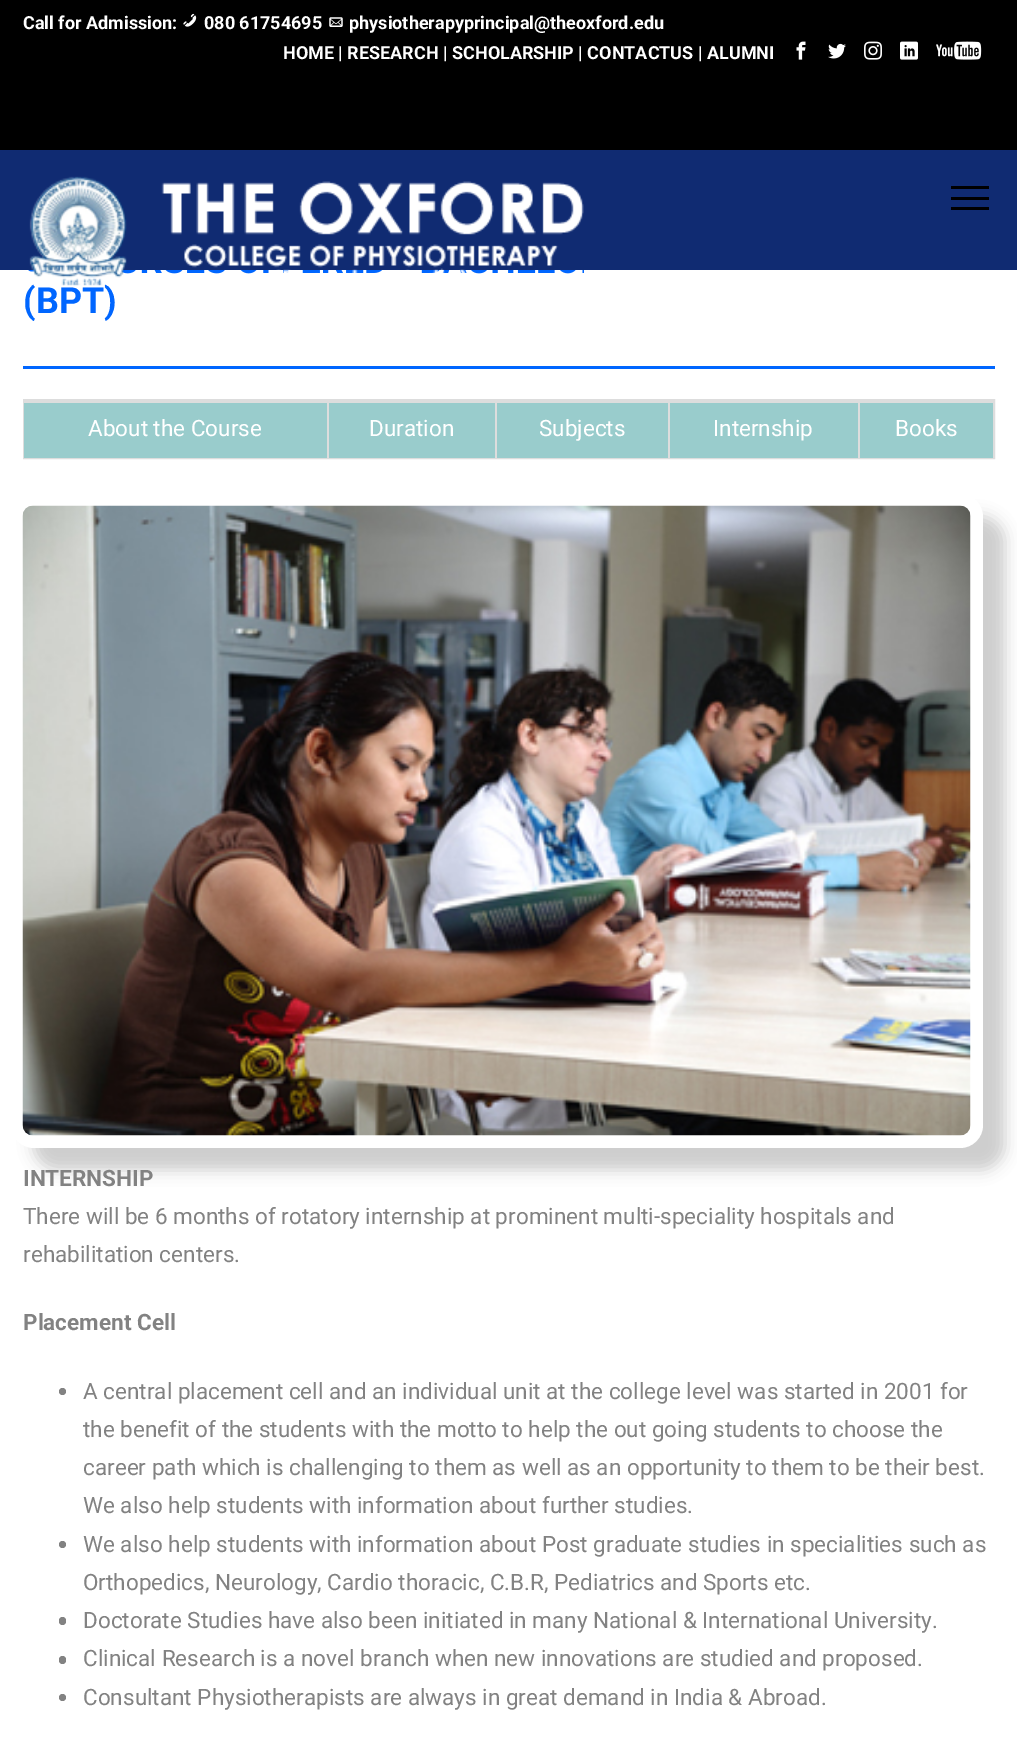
%!PS
<< /PageSize [1017 1740] /PageUsesTransparency true >> setpagedevice
/rgb { 3 { 255 div 3 1 roll } repeat setrgbcolor } def
/font { [ exch dup neg 0 0 3 -1 roll 0 0 ] selectfont } def
/text { moveto show } def
/alpha { dup .setfillconstantalpha .setstrokeconstantalpha } def
/circle { newpath 0 360 arc closepath } def
/roundrect { 5 dict begin { /r /h /w /y /x } { exch def } forall
  x r add y moveto x w add y 2 copy h add r arct x w add y h add x 1 index r arct
  x y h add x y r arct x y 2 copy exch w add exch r arct closepath end } def
/shadow { 12 dict begin { /a /b /q /h /w /y /x } { exch def } forall gsave /was 0 def
  9 -2 -9 { dup b mul 4 div /e exch def 1 sub .425 mul 2.718 exch exp 1 add a .99 .min exch div /now exch def
    1 1 now sub 1 was sub div sub alpha /was now def
    w h .min e 2 mul add 0 gt { x e sub y e sub w e 2 mul add h e 2 mul add
      q e add b .6 mul add w h .min 2 div e add .min 0 .max roundrect fill } if } for grestore end } def
/picture { 5 dict begin { /h /w /y /x /name } { exch def } forall
  gsave x y translate w h scale
  w h 8 [w 0 0 h 0 0] name (r) file false 3 colorimage grestore end } def
0 .pushpdf14devicefilter
0 1740 translate 1 -1 scale
4 setmiterlimit
255 255 255 rgb
0 0 1017 1740 rectfill
16 43 114 rgb
0 150 1017 120 rectfill
0 0 0 rgb
0 0 1017 150 rectfill
(img_01.rgb) 183 13 14 14 picture
(img_02.rgb) 329 17 14 10 picture
(img_03.rgb) 796 41 10 19 picture
(img_04.rgb) 828 43 18 16 picture
(img_05.rgb) 864 41 18 19 picture
(img_06.rgb) 900 41 18 19 picture
(img_07.rgb) 936 41 46 19 picture
951 197 38 3 rectfill
951 186 38 3 rectfill
951 207 38 3 rectfill
(img_09.rgb) 28 270 19 2 picture
0 102 255 rgb
23 366 972 3 rectfill
221 221 221 rgb
2 setlinewidth
24 400 970 58 rectstroke
153 204 204 rgb
24 403 303 55 rectfill
221 221 221 rgb
858 401 135 2 rectfill
858 401 2 57 rectfill
668 401 192 2 rectfill
668 401 2 57 rectfill
495 401 174 2 rectfill
495 401 2 57 rectfill
327 401 170 2 rectfill
327 401 2 57 rectfill
24 401 305 2 rectfill
153 204 204 rgb
329 403 166 55 rectfill
497 403 171 55 rectfill
670 403 188 55 rectfill
860 403 133 55 rectfill
204 204 204 rgb
33 516 972 654 23 7.5 1 shadow
255 255 255 rgb
11 494 972 654 23 roundrect fill
(img_10.rgb) 22 505 949 631 picture
130 130 130 rgb
62.5 1391.5 3.5 circle fill
62.5 1544.5 3.5 circle fill
59 1617 7 8 3.5 roundrect fill
59 1656 7 8 3.5 roundrect fill
62.5 1697.5 3.5 circle fill
/Roboto-Bold 18 font
255 255 255 rgb
(Call for Admission:) 23 29 text
(080 61754695) 204 29 text
(physiotherapyprincipal@theoxford.edu) 349 29 text
(HOME | RESEARCH | SCHOLARSHIP | CONTACTUS | ALUMNI) 283 59 text
/Roboto-Bold 36 font
0 102 255 rgb
(\(BPT\)) 23 313 text
(img_08.rgb) 29 176 555 110 picture
/Roboto-Regular 22.5 font
255 255 255 rgb
(About the Course) 88 436 text
(Duration) 369 436 text
(Subjects) 539 436 text
(Internship) 713 436 text
(Books) 895 436 text
/Roboto-Bold 22.5 font
130 130 130 rgb
(INTERNSHIP) 23 1186 text
/Roboto-Regular 22.5 font
(There will be 6 months of rotatory internship at prominent multi-speciality hospitals and) 23 1224 text
(rehabilitation centers.) 23 1262 text
/Roboto-Bold 22.5 font
(Placement Cell) 23 1330 text
/Roboto-Regular 22.5 font
(A central placement cell and an individual unit at the college level was started in 2001 for) 83 1399 text
(the benefit of the students with the motto to help the out going students to choose the) 83 1437 text
(career path which is challenging to them as well as an opportunity to them to be their best.) 83 1475 text
(We also help students with information about further studies.) 83 1513 text
(We also help students with information about Post graduate studies in specialities such as) 83 1552 text
(Orthopedics, Neurology, Cardio thoracic, C.B.R, Pediatrics and Sports etc.) 83 1590 text
(Doctorate Studies have also been initiated in many National & International University.) 83 1628 text
(Clinical Research is a novel branch when new innovations are studied and proposed.) 83 1666 text
(Consultant Physiotherapists are always in great demand in India & Abroad.) 83 1705 text
.poppdf14devicefilter showpage
